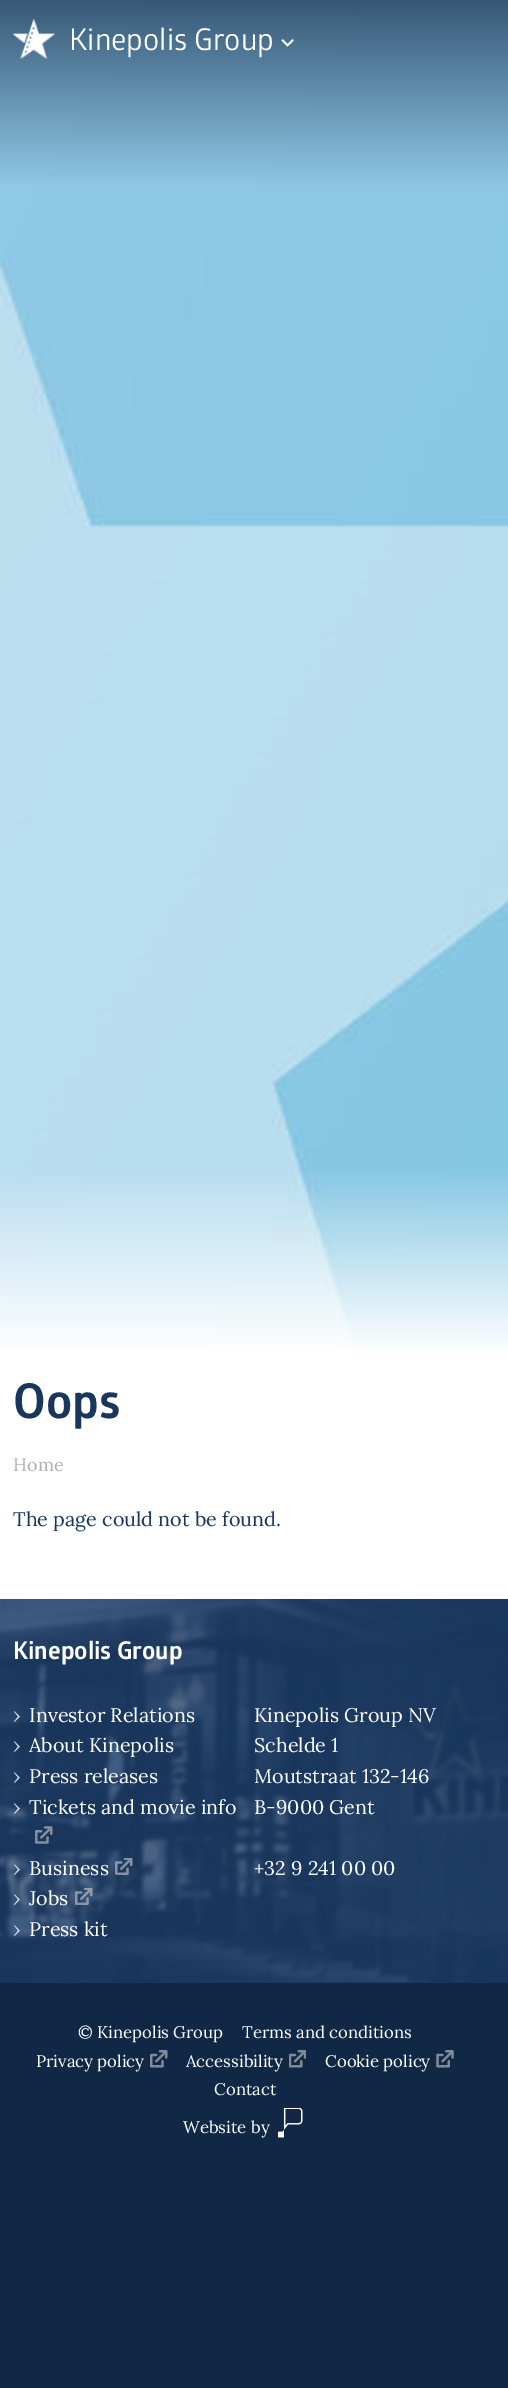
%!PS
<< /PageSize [508 2388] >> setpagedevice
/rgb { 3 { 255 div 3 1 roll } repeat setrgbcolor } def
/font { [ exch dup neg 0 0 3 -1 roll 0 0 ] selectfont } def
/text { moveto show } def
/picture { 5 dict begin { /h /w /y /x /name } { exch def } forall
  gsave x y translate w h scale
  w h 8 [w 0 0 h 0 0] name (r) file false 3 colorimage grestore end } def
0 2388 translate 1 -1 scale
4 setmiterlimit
16 39 70 rgb
0 0 508 2388 rectfill
(img_01.rgb) 0 0 508 1356 picture
(img_02.rgb) 13 19 42 40 picture
(img_03.rgb) 281 39 13 8 picture
255 255 255 rgb
0 1356 508 243 rectfill
25 54 92 rgb
0 1599 508 384 rectfill
(img_04.rgb) 0 1598 508 385 picture
(img_05.rgb) 35 1826 18 18 picture
(img_06.rgb) 115 1858 18 17 picture
(img_07.rgb) 75 1888 18 17 picture
(img_08.rgb) 150 2050 18 18 picture
(img_09.rgb) 289 2050 17 18 picture
(img_10.rgb) 436 2050 18 18 picture
(img_11.rgb) 278 2108 25 30 picture
/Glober-Regular 30 font
255 255 255 rgb
(Kinepolis Group) 69 50 text
/Glober-Bold 48 font
25 54 92 rgb
(Oops) 13 1418 text
/Lora-Regular 18 font
176 176 176 rgb
(Home) 13 1471 text
/Lora-Regular 19.75 font
25 54 92 rgb
(The page could not be found.) 13 1526 text
/Glober-Bold 24.5 font
255 255 255 rgb
(Kinepolis Group) 13 1659 text
/Lora-Regular 19.75 font
211 217 225 rgb
(›) 13 1722 text
255 255 255 rgb
(Investor Relations) 29 1722 text
211 217 225 rgb
(›) 13 1752 text
255 255 255 rgb
(About Kinepolis) 29 1752 text
211 217 225 rgb
(›) 13 1783 text
255 255 255 rgb
(Press releases) 29 1783 text
211 217 225 rgb
(›) 13 1814 text
255 255 255 rgb
(Tickets and movie info) 29 1814 text
211 217 225 rgb
(›) 13 1875 text
255 255 255 rgb
(Business) 29 1875 text
211 217 225 rgb
(›) 13 1905 text
255 255 255 rgb
(Jobs) 29 1905 text
211 217 225 rgb
(›) 13 1936 text
255 255 255 rgb
(Press kit) 29 1936 text
(Kinepolis Group NV) 254 1722 text
(Schelde 1) 254 1752 text
(Moutstraat 132-146) 254 1783 text
(B-9000 Gent) 254 1814 text
(+32 9 241 00 00) 254 1875 text
/Lora-Regular 16.75 font
(© Kinepolis Group) 78 2038 text
(Terms and conditions) 242 2038 text
(Privacy policy) 36 2067 text
(Accessibility) 186 2067 text
(Cookie policy) 325 2067 text
(Contact) 214 2095 text
(Website by) 183 2133 text
showpage
